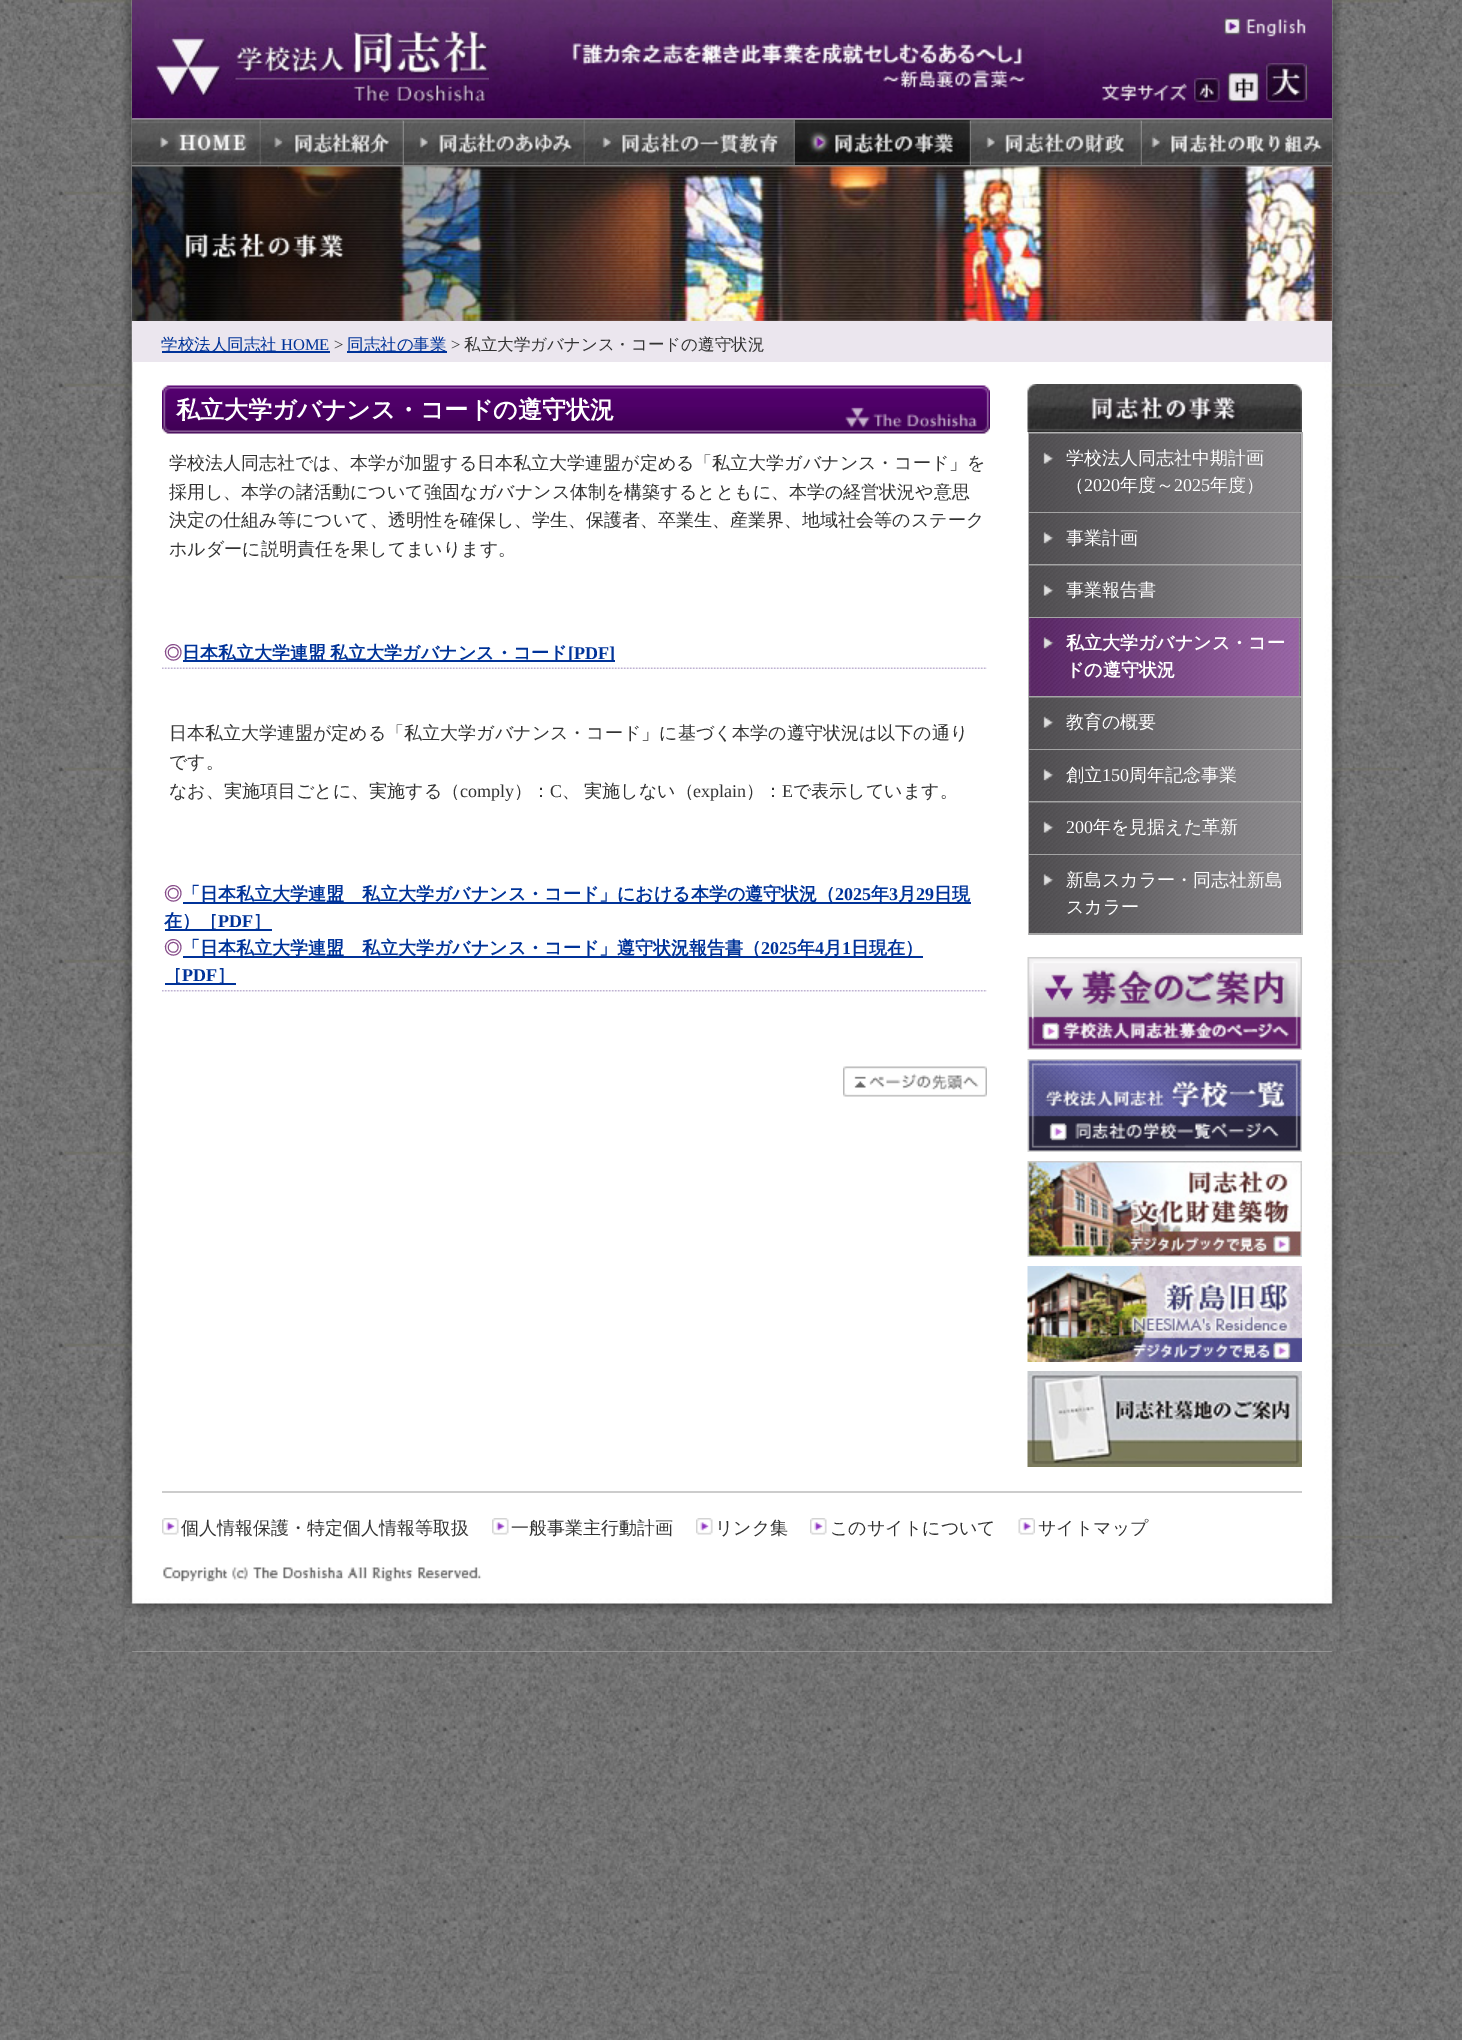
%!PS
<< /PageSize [1462 2040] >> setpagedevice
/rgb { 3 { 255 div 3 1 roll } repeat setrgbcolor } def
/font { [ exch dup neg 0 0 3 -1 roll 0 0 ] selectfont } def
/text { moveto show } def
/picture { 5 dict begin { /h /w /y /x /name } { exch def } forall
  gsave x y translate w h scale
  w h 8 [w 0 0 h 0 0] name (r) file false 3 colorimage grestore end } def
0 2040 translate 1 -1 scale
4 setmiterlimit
255 255 255 rgb
0 0 1462 2040 rectfill
(img_01.rgb) 0 0 1462 2040 picture
(img_02.rgb) 64 0 1336 1652 picture
(img_03.rgb) 132 0 1200 119 picture
(img_04.rgb) 154 7 335 97 picture
(img_05.rgb) 549 27 495 75 picture
(img_06.rgb) 1219 15 90 23 picture
(img_07.rgb) 1100 81 89 23 picture
(img_08.rgb) 1194 63 116 41 picture
(img_09.rgb) 1194 78 26 24 picture
(img_10.rgb) 1266 63 41 39 picture
131 131 131 rgb
132 119 1200 2 rectfill
132 165 1200 2 rectfill
(img_11.rgb) 132 120 129 45 picture
(img_12.rgb) 261 120 143 45 picture
(img_13.rgb) 403 120 182 45 picture
(img_14.rgb) 585 120 210 45 picture
(img_15.rgb) 795 120 176 45 picture
(img_16.rgb) 970 120 172 45 picture
(img_17.rgb) 1141 120 191 45 picture
(img_18.rgb) 132 166 1200 155 picture
235 230 238 rgb
132 321 1200 41 rectfill
0 51 153 rgb
162 351 168 2 rectfill
347 351 100 2 rectfill
(img_19.rgb) 162 385 828 22 picture
(img_20.rgb) 162 407 828 28 picture
(img_21.rgb) 162 667 825 2 picture
183 660 432 2 rectfill
(img_22.rgb) 162 990 825 2 picture
183 902 788 2 rectfill
165 929 107 2 rectfill
183 956 740 2 rectfill
165 983 71 2 rectfill
(img_23.rgb) 843 1066 144 31 picture
(img_24.rgb) 1027 384 275 48 picture
178 178 178 rgb
1028 432 274 2 rectfill
1301 432 2 503 rectfill
1028 432 2 503 rectfill
101 99 102 rgb
1300 434 1 78 rectfill
(img_25.rgb) 1029 433 272 79 picture
165 165 165 rgb
1029 512 272 1 rectfill
(img_26.rgb) 1043 452 11 12 picture
101 99 102 rgb
1300 513 1 51 rectfill
(img_27.rgb) 1029 513 272 51 picture
165 165 165 rgb
1029 564 272 2 rectfill
(img_28.rgb) 1043 532 11 12 picture
101 99 102 rgb
1300 566 1 51 rectfill
(img_29.rgb) 1029 565 272 52 picture
165 165 165 rgb
1029 617 272 1 rectfill
(img_30.rgb) 1043 584 11 12 picture
87 37 100 rgb
1300 618 1 78 rectfill
(img_31.rgb) 1029 618 272 78 picture
165 165 165 rgb
1029 696 272 2 rectfill
(img_32.rgb) 1043 637 11 12 picture
101 99 102 rgb
1300 698 1 51 rectfill
(img_33.rgb) 1029 697 272 52 picture
165 165 165 rgb
1029 749 272 1 rectfill
(img_34.rgb) 1043 716 11 12 picture
101 99 102 rgb
1300 750 1 51 rectfill
(img_35.rgb) 1029 750 272 51 picture
165 165 165 rgb
1029 801 272 2 rectfill
(img_28.rgb) 1043 769 11 12 picture
101 99 102 rgb
1300 803 1 51 rectfill
(img_36.rgb) 1029 802 272 52 picture
165 165 165 rgb
1029 854 272 1 rectfill
(img_34.rgb) 1043 821 11 12 picture
101 99 102 rgb
1300 855 1 78 rectfill
(img_37.rgb) 1029 855 272 78 picture
165 165 165 rgb
1029 933 272 2 rectfill
(img_38.rgb) 1043 874 11 12 picture
(img_39.rgb) 1027 957 275 93 picture
(img_40.rgb) 1027 1059 275 93 picture
(img_41.rgb) 1027 1161 275 96 picture
(img_42.rgb) 1027 1266 275 96 picture
(img_43.rgb) 1027 1371 275 96 picture
(img_44.rgb) 124 1575 1216 77 picture
204 204 204 rgb
162 1491 1140 2 rectfill
(img_45.rgb) 162 1518 17 17 picture
(img_46.rgb) 492 1518 17 17 picture
(img_45.rgb) 696 1518 17 17 picture
(img_45.rgb) 810 1518 17 17 picture
(img_47.rgb) 1018 1518 17 17 picture
(img_48.rgb) 163 1567 319 15 picture
/WenQuanYiZenHei-Medium 16.5 font
0 51 153 rgb
(学校法人同志社) 161 350 text
/LiberationSerif-Regular 16.5 font
(HOME) 281 350 text
51 51 51 rgb
(>) 334 350 text
/WenQuanYiZenHei-Medium 16.5 font
0 51 153 rgb
(同志社の事業) 347 350 text
/LiberationSerif-Regular 16.5 font
51 51 51 rgb
(>) 451 350 text
/WenQuanYiZenHei-Medium 16.5 font
(私立大学ガバナンス・コードの遵守状況) 464 350 text
/WenQuanYiZenHei-Bold 24.1 font
255 255 255 rgb
(私立大学ガバナンス・コードの遵守状況) 176 418 text
/WenQuanYiZenHei-Medium 18 font
51 51 51 rgb
(学校法人同志社では、本学が加盟する日本私立大学連盟が定める「私立大学ガバナンス・コード」を) 169 469 text
(採用し、本学の諸活動について強固なガバナンス体制を構築するとともに、本学の経営状況や意思) 169 498 text
(決定の仕組み等について、透明性を確保し、学生、保護者、卒業生、産業界、地域社会等のステーク) 169 526 text
(ホルダーに説明責任を果してまいります。) 169 555 text
/WenQuanYiZenHei-Bold 18 font
135 76 138 rgb
(◎) 164 659 text
0 51 153 rgb
182 659 moveto -1 0 32 (日本私立大学連盟 私立大学ガバナンス・コード) widthshow
/LiberationSerif-Bold 18 font
([PDF]) 568 659 text
/WenQuanYiZenHei-Medium 18 font
51 51 51 rgb
(日本私立大学連盟が定める「私立大学ガバナンス・コード」に基づく本学の遵守状況は以下の通り) 169 739 text
(です。) 169 768 text
(なお、実施項目ごとに、実施する（) 169 797 text
/LiberationSerif-Regular 18 font
(comply) 460 797 text
/WenQuanYiZenHei-Medium 18 font
(）：) 514 797 text
/LiberationSerif-Regular 18 font
(C) 550 797 text
/WenQuanYiZenHei-Medium 18 font
562 797 moveto -1 0 32 (、 実施しない（) widthshow
/LiberationSerif-Regular 18 font
(explain) 693 797 text
/WenQuanYiZenHei-Medium 18 font
(）：) 746 797 text
/LiberationSerif-Regular 18 font
(E) 782 797 text
/WenQuanYiZenHei-Medium 18 font
(で表示しています。) 793 797 text
/WenQuanYiZenHei-Bold 18 font
135 76 138 rgb
(◎) 164 900 text
0 51 153 rgb
(「日本私立大学連盟　私立大学ガバナンス・コード」における本学の遵守状況（) 182 900 text
/LiberationSerif-Bold 18 font
(2025) 835 900 text
/WenQuanYiZenHei-Bold 18 font
(年) 871 900 text
/LiberationSerif-Bold 18 font
(3) 889 900 text
/WenQuanYiZenHei-Bold 18 font
(月) 898 900 text
/LiberationSerif-Bold 18 font
(29) 916 900 text
/WenQuanYiZenHei-Bold 18 font
(日現) 934 900 text
(在）［) 164 927 text
/LiberationSerif-Bold 18 font
(PDF) 218 927 text
/WenQuanYiZenHei-Bold 18 font
(］) 253 927 text
135 76 138 rgb
(◎) 164 954 text
0 51 153 rgb
(「日本私立大学連盟　私立大学ガバナンス・コード」遵守状況報告書（) 182 954 text
/LiberationSerif-Bold 18 font
(2025) 761 954 text
/WenQuanYiZenHei-Bold 18 font
(年) 797 954 text
/LiberationSerif-Bold 18 font
(4) 815 954 text
/WenQuanYiZenHei-Bold 18 font
(月) 824 954 text
/LiberationSerif-Bold 18 font
(1) 842 954 text
/WenQuanYiZenHei-Bold 18 font
(日現在）) 851 954 text
(［) 164 981 text
/LiberationSerif-Bold 18 font
(PDF) 182 981 text
/WenQuanYiZenHei-Bold 18 font
(］) 217 981 text
/WenQuanYiZenHei-Medium 18 font
255 255 255 rgb
(学校法人同志社中期計画) 1066 464 text
(（) 1066 491 text
/LiberationSerif-Regular 18 font
(2020) 1084 491 text
/WenQuanYiZenHei-Medium 18 font
(年度～) 1120 491 text
/LiberationSerif-Regular 18 font
(2025) 1174 491 text
/WenQuanYiZenHei-Medium 18 font
(年度）) 1210 491 text
(事業計画) 1066 544 text
(事業報告書) 1066 596 text
/WenQuanYiZenHei-Bold 18 font
(私立大学ガバナンス・コー) 1066 649 text
(ドの遵守状況) 1066 676 text
/WenQuanYiZenHei-Medium 18 font
(教育の概要) 1066 728 text
(創立) 1066 781 text
/LiberationSerif-Regular 18 font
(150) 1102 781 text
/WenQuanYiZenHei-Medium 18 font
(周年記念事業) 1129 781 text
/LiberationSerif-Regular 18 font
(200) 1066 833 text
/WenQuanYiZenHei-Medium 18 font
(年を見据えた革新) 1093 833 text
(新島スカラー・同志社新島) 1066 886 text
(スカラー) 1066 913 text
51 51 51 rgb
(個人情報保護・特定個人情報等取扱) 181 1534 text
(一般事業主行動計画) 511 1534 text
(リンク集) 715 1534 text
(このサイトについて) 830 1534 text
(サイトマップ) 1038 1534 text
showpage
